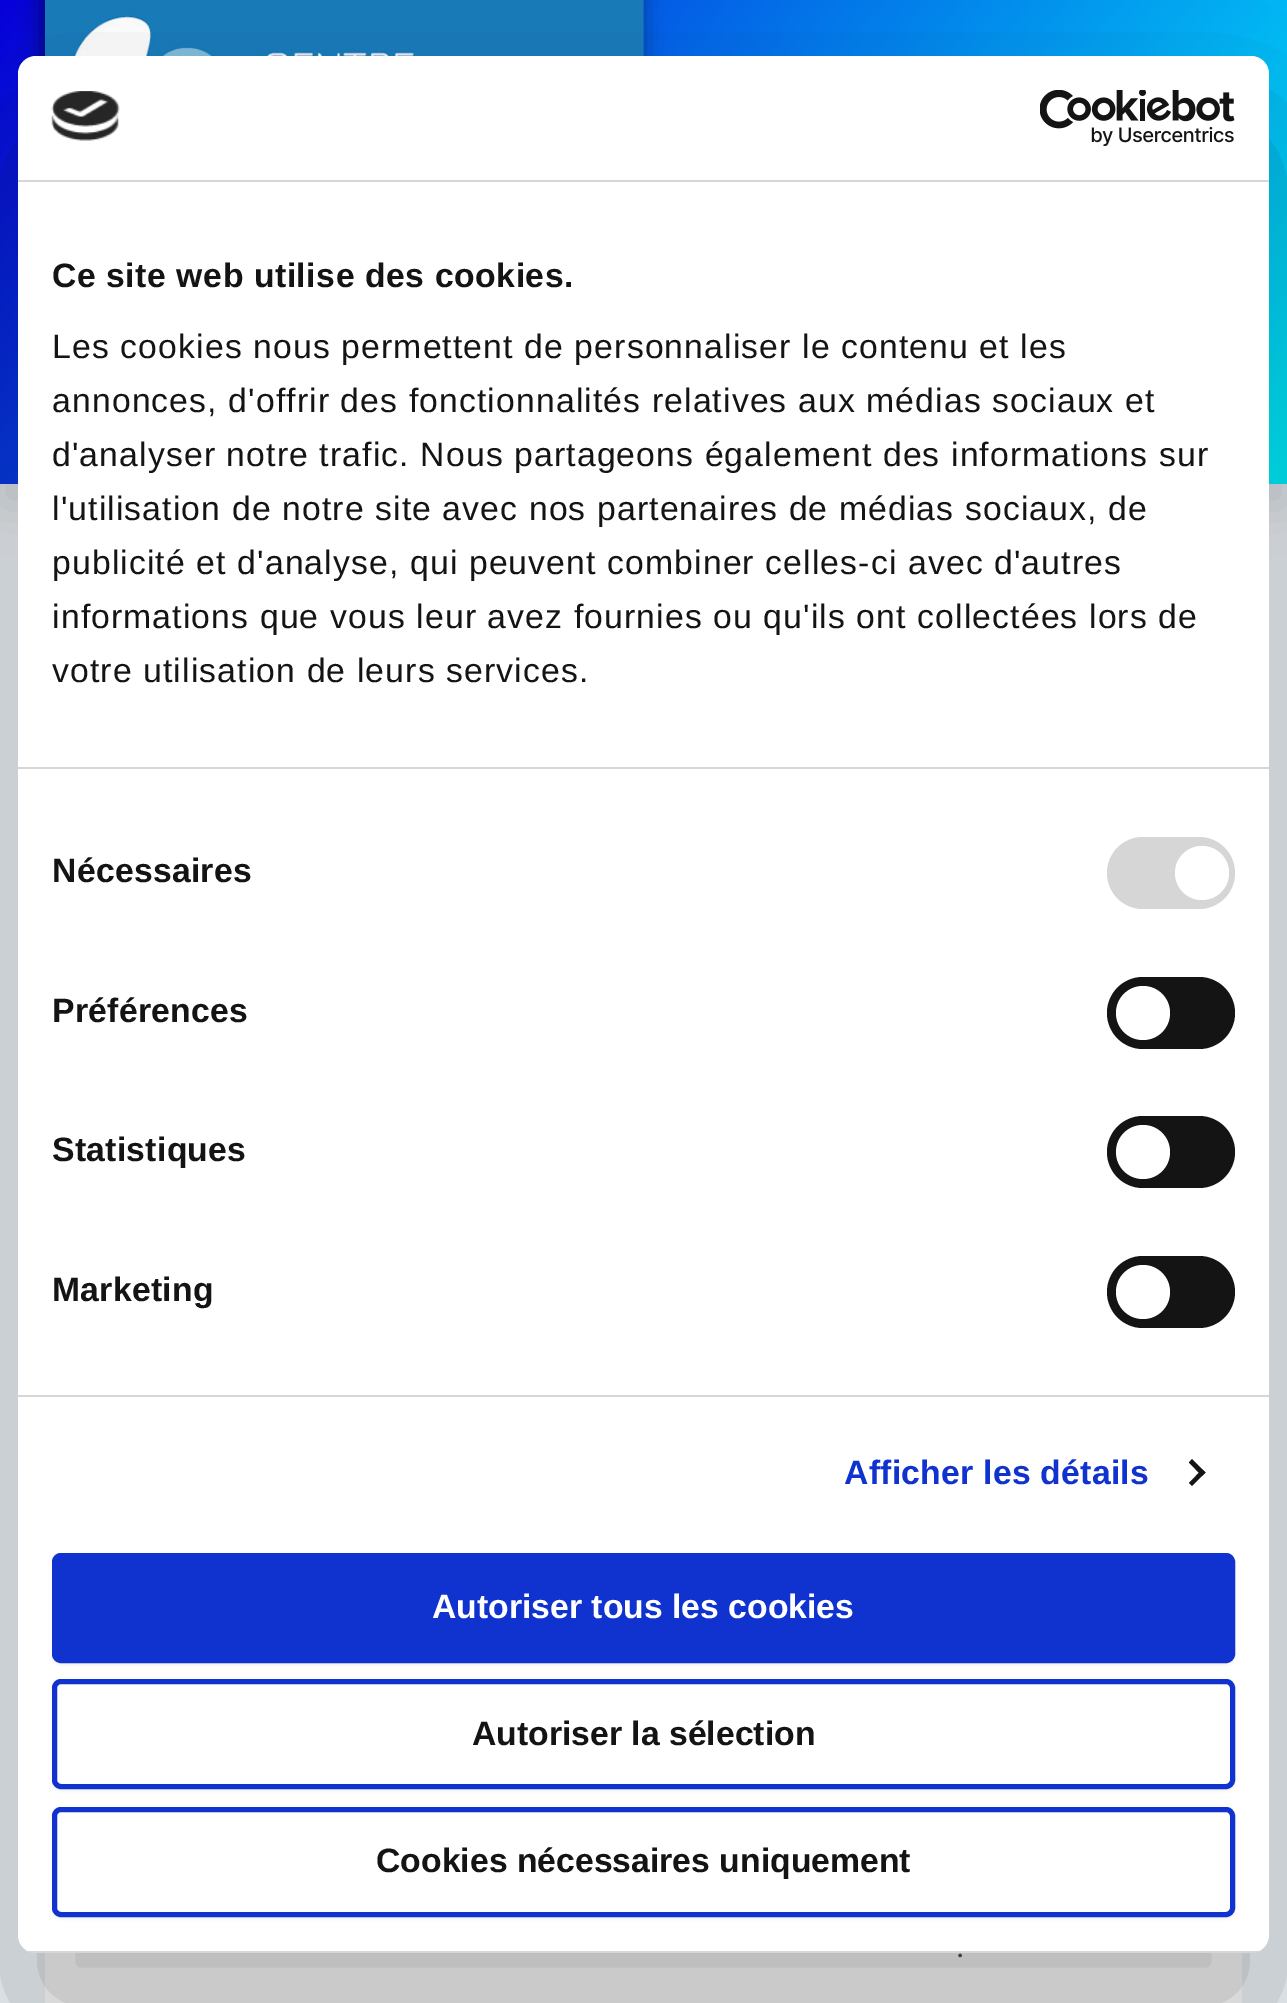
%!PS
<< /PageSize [1287 2003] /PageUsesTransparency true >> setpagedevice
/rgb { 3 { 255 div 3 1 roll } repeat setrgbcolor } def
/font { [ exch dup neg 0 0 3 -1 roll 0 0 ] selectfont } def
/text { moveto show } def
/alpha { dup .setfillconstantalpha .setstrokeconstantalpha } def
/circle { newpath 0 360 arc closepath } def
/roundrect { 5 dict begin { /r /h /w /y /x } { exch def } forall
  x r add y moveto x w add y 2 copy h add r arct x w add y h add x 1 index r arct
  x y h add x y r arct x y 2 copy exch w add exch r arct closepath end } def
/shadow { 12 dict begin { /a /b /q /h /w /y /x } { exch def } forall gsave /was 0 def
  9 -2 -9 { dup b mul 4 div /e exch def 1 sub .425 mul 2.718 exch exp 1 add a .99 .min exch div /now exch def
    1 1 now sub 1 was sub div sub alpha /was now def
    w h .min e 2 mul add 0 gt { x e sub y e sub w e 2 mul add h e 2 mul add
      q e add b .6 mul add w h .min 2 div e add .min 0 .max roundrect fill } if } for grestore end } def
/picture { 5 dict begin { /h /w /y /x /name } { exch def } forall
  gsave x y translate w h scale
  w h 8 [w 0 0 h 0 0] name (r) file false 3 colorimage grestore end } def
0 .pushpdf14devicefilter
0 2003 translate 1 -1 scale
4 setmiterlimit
240 245 250 rgb
0 0 1287 2003 rectfill
0 0 0 rgb
0 23 1287 483 0 22.5 0.1 shadow
gsave 0 0 moveto 1287 0 rlineto 0 484 rlineto -1287 0 rlineto closepath clip newpath
<< /ShadingType 2 /ColorSpace /DeviceRGB /Coords [147 -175 1140 659] /Extend [true true] /Function << /FunctionType 2 /Domain [0 1] /C0 [0.027 0 0.867] /C1 [0 0.949 1] /N 1 >> >> shfill grestore
41 0 598 254 0 11 0.5 shadow
(img_03.rgb) 45 0 599 56 picture
255 255 255 rgb
45 1953 1197 50 rectfill
0 0 0 rgb
18 128 1251 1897 18 76.5 0.3 shadow
255 255 255 rgb
18 56 1251 1897 18 roundrect fill
214 214 214 rgb
18 180 1251 2 rectfill
(img_01.rgb) 51 91 69 50 picture
(img_02.rgb) 1040 90 195 56 picture
18 767 1251 2 rectfill
18 1395 1251 2 rectfill
1107 837 128 72 36 roundrect fill
255 255 255 rgb
1202 873 27 circle fill
20 20 20 rgb
1107 977 128 72 36 roundrect fill
255 255 255 rgb
1143 1013 27 circle fill
20 20 20 rgb
1107 1116 128 72 36 roundrect fill
255 255 255 rgb
1143 1152 27 circle fill
20 20 20 rgb
1107 1256 128 72 36 roundrect fill
255 255 255 rgb
1143 1292 27 circle fill
20 20 20 rgb
1192 1459 moveto 13.5 13.5 rlineto -3.5 3.5 rlineto -13 -13.5 rlineto closepath fill
1202 1469.5 moveto 3.5 3 rlineto -13.5 13.5 rlineto -3 -3 rlineto closepath fill
gsave
18 56 1251 1897 18 roundrect clip newpath
214 214 214 rgb
28 1951 1231 2 rectfill
grestore
0 0 0 rgb
52 1555 1183 110 9 2 0.05 shadow
16 50 207 rgb
54.5 1555.5 1178 105 6.5 roundrect gsave fill grestore
5 setlinewidth
stroke
gsave
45 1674 moveto 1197 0 rlineto 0 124 rlineto -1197 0 rlineto closepath 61 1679 moveto 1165 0 rlineto 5 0 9 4 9 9 rcurveto 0 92 rlineto 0 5 -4 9 -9 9 rcurveto -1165 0 rlineto -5 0 -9 -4 -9 -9 rcurveto 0 -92 rlineto 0 -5 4 -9 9 -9 rcurveto closepath eoclip newpath
0 0 0 rgb
52 1681 1183 110 9 2 0.05 shadow
grestore
54.5 1681.5 1178 105 6.5 roundrect stroke
gsave
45 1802 moveto 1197 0 rlineto 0 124 rlineto -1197 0 rlineto closepath 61 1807 moveto 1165 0 rlineto 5 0 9 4 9 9 rcurveto 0 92 rlineto 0 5 -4 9 -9 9 rcurveto -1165 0 rlineto -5 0 -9 -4 -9 -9 rcurveto 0 -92 rlineto 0 -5 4 -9 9 -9 rcurveto closepath eoclip newpath
0 0 0 rgb
52 1809 1183 110 9 2 0.05 shadow
grestore
54.5 1809.5 1178 105 6.5 roundrect stroke
/LiberationSans-Bold 33.75 font
20 20 20 rgb
52 287 moveto 0.55 0 (Ce site web utilise des cookies.) ashow
/LiberationSans-Regular 33.75 font
52 358 moveto 1.12 0 (Les cookies nous permettent de personnaliser le contenu et les) ashow
52 412 moveto 1.12 0 (annonces, d'offrir des fonctionnalités relatives aux médias sociaux et) ashow
52 466 moveto 1.12 0 (d'analyser notre trafic. Nous partageons également des informations sur) ashow
52 520 moveto 1.12 0 (l'utilisation de notre site avec nos partenaires de médias sociaux, de) ashow
52 574 moveto 1.12 0 (publicité et d'analyse, qui peuvent combiner celles-ci avec d'autres) ashow
52 628 moveto 1.12 0 (informations que vous leur avez fournies ou qu'ils ont collectées lors de) ashow
52 682 moveto 1.12 0 (votre utilisation de leurs services.) ashow
/LiberationSans-Bold 33.75 font
52 882 moveto 0.25 0 (Nécessaires) ashow
52 1022 moveto 0.25 0 (Préférences) ashow
52 1161 moveto 0.25 0 (Statistiques) ashow
52 1301 moveto 0.25 0 (Marketing) ashow
16 50 207 rgb
844 1484 moveto 0.25 0 (Afficher les détails) ashow
255 255 255 rgb
(Autoriser tous les cookies) 432 1618 text
20 20 20 rgb
(Autoriser la sélection) 472 1745 text
(Cookies nécessaires uniquement) 376 1872 text
/Roboto-Regular 33 font
51 65 85 rgb
(.) 956 1957 text
.poppdf14devicefilter showpage
